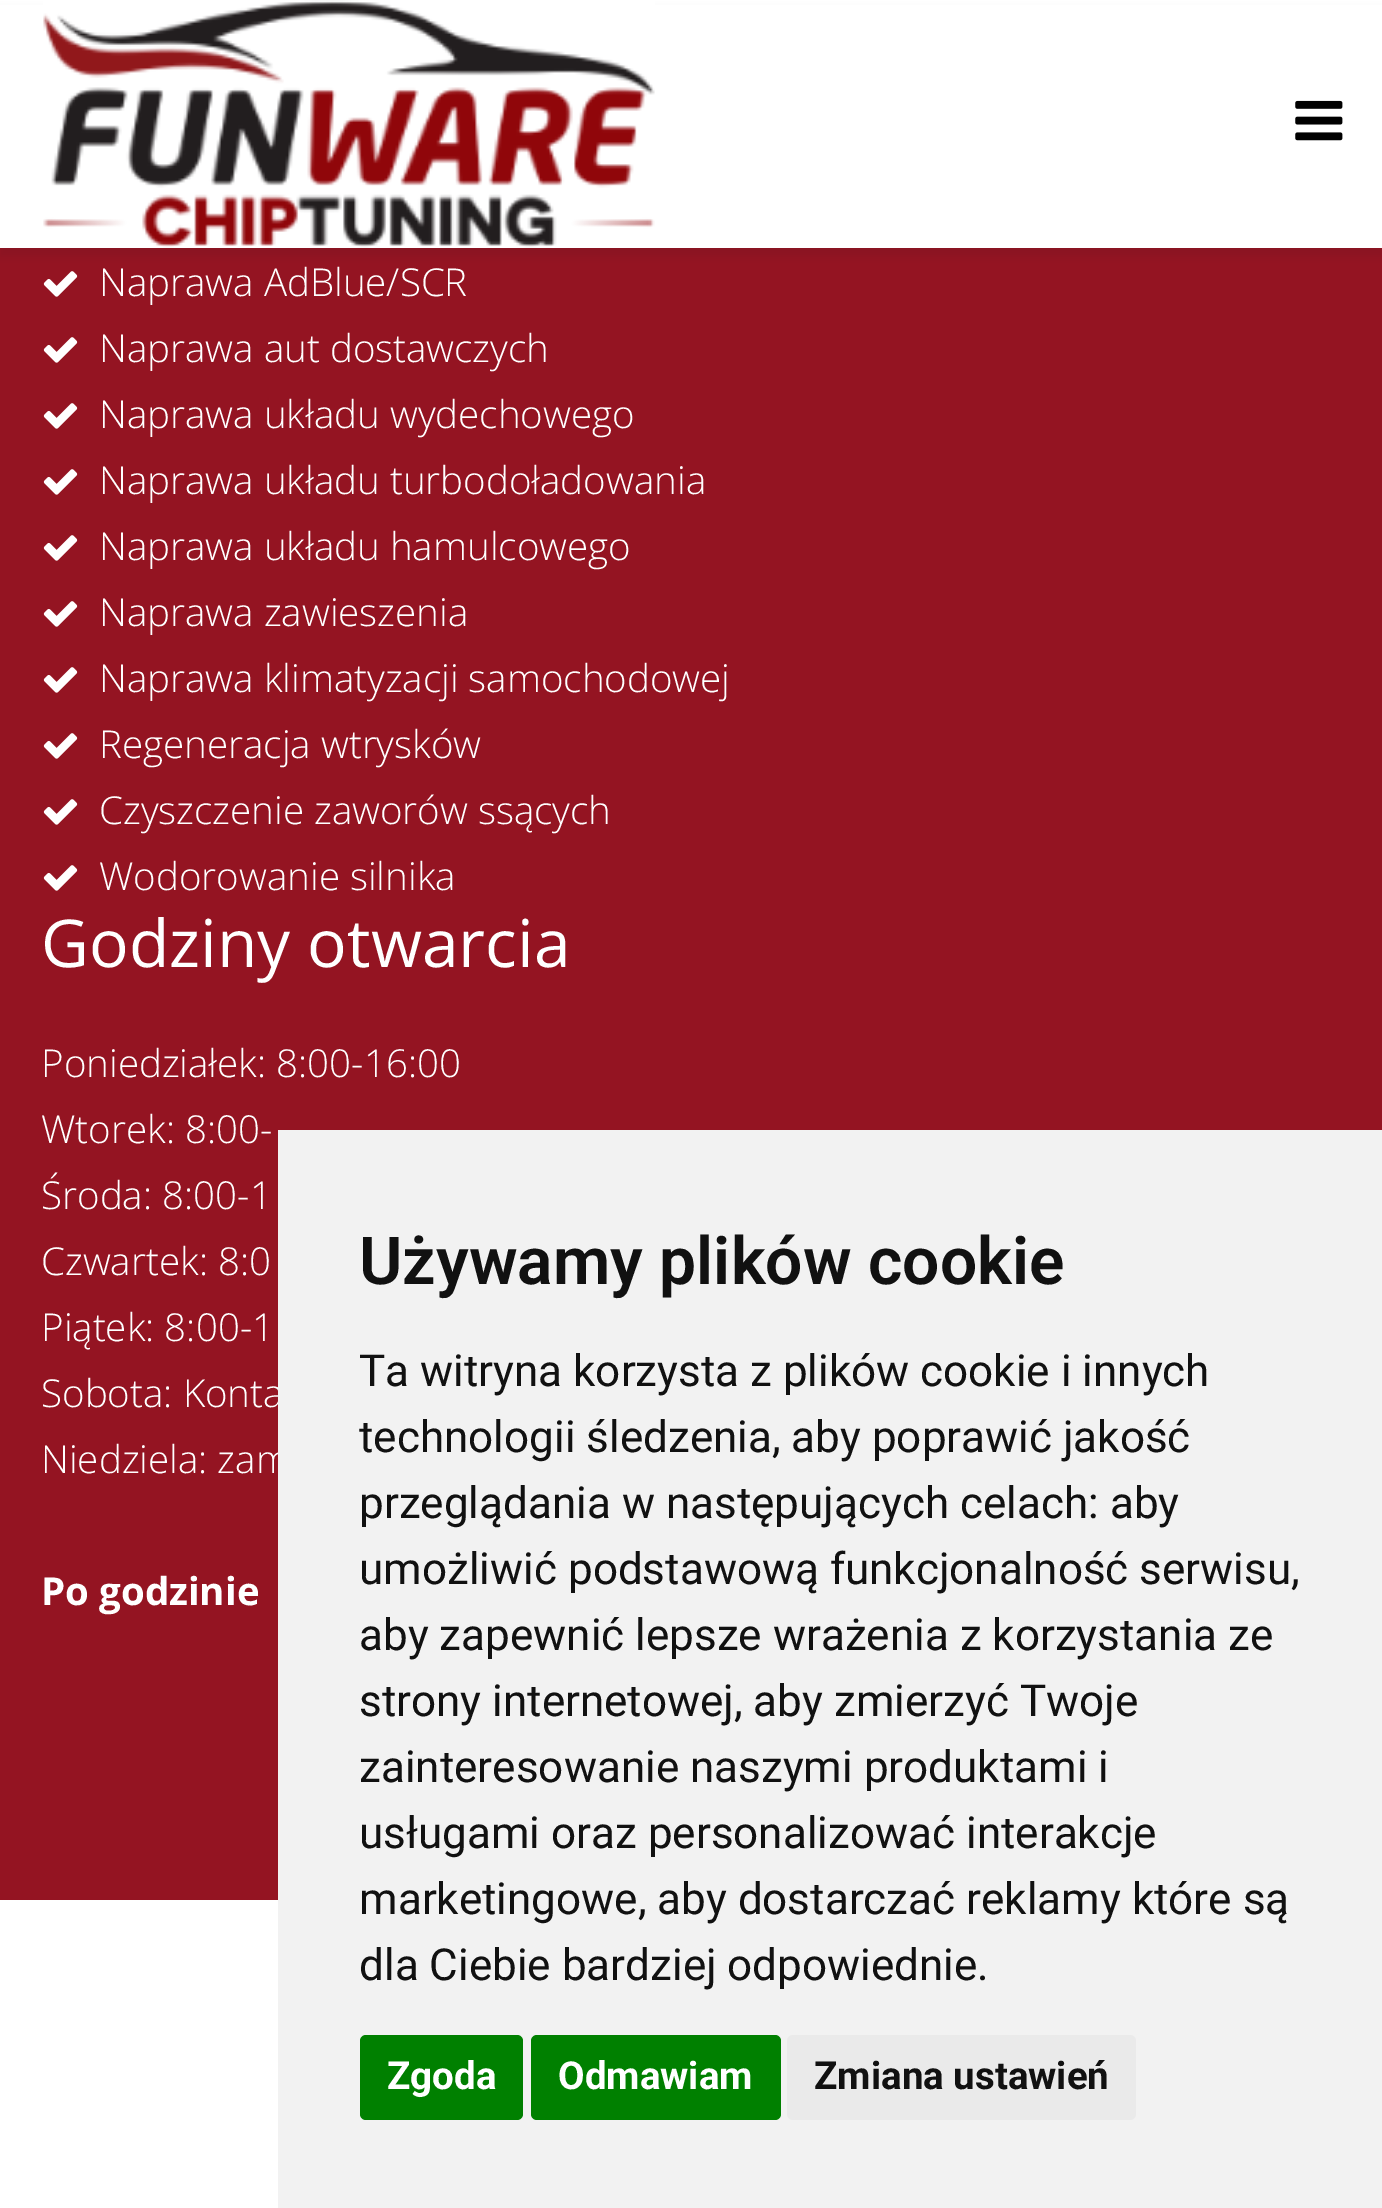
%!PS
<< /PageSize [1382 2208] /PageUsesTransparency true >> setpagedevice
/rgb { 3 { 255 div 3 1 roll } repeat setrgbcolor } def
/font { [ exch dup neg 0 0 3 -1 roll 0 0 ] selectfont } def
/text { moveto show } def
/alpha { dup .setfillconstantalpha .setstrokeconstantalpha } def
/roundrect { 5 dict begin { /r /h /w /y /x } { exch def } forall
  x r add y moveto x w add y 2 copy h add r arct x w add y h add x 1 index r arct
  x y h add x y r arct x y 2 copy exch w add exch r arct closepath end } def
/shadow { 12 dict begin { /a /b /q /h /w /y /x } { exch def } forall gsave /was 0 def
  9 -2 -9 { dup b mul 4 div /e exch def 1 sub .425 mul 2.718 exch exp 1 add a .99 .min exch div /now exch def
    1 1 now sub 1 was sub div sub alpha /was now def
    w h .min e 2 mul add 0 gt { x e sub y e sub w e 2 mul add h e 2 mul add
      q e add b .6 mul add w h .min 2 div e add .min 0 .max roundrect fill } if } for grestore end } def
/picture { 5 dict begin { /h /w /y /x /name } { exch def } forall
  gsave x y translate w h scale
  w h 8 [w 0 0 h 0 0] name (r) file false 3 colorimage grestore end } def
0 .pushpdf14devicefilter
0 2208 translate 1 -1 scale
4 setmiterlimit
255 255 255 rgb
0 0 1382 2208 rectfill
148 20 34 rgb
0 248 1382 1652 rectfill
0 0 0 rgb
0 8 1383 248 0 4 0.05 shadow
255 255 255 rgb
0 5 1382 243 rectfill
(img_01.rgb) 43 0 612 248 picture
(img_02.rgb) 1295 100 48 41 picture
(img_03.rgb) 43 271 35 26 picture
(img_03.rgb) 43 337 35 26 picture
(img_03.rgb) 43 403 35 26 picture
(img_03.rgb) 43 469 35 26 picture
(img_03.rgb) 43 535 35 26 picture
(img_03.rgb) 43 601 35 26 picture
(img_03.rgb) 43 667 35 26 picture
(img_03.rgb) 43 733 35 26 picture
(img_03.rgb) 43 799 35 26 picture
(img_03.rgb) 43 865 35 26 picture
/OpenSans-Light 38.5 font
(Naprawa AdBlue/SCR) 99 296 text
(Naprawa aut dostawczych) 99 362 text
(Naprawa układu wydechowego) 99 428 text
(Naprawa układu turbodoładowania) 99 494 text
(Naprawa układu hamulcowego) 99 560 text
(Naprawa zawieszenia) 99 626 text
(Naprawa klimatyzacji samochodowej) 99 692 text
(Regeneracja wtrysków) 99 758 text
(Czyszczenie zaworów ssących) 99 824 text
(Wodorowanie silnika) 99 890 text
/OpenSans-Regular 66 font
(Godziny otwarcia) 41 967 text
/OpenSans-Light 38.5 font
(Poniedziałek: 8:00-16:00) 41 1077 text
(Wtorek: 8:00-) 41 1143 text
(Środa: 8:00-1) 41 1209 text
(Czwartek: 8:0) 41 1275 text
(Piątek: 8:00-1) 41 1341 text
(Sobota: Konta) 41 1407 text
(Niedziela: zam) 41 1473 text
/OpenSans-Bold 38.5 font
(Po godzinie) 41 1605 text
242 242 242 rgb
278 1130 1104 1078 rectfill
/Roboto-SemiBold 66 font
17 17 17 rgb
(Używamy plików cookie) 359 1284 text
/Roboto-Regular 44 font
(Ta witryna korzysta z plików cookie i innych) 359 1386 text
(technologii śledzenia, aby poprawić jakość) 359 1452 text
(przeglądania w następujących celach: aby) 359 1518 text
(umożliwić podstawową funkcjonalność serwisu,) 359 1584 text
(aby zapewnić lepsze wrażenia z korzystania ze) 359 1650 text
(strony internetowej, aby zmierzyć Twoje) 359 1716 text
(zainteresowanie naszymi produktami i) 359 1782 text
(usługami oraz personalizować interakcje) 359 1848 text
(marketingowe, aby dostarczać reklamy które są) 359 1914 text
(dla Ciebie bardziej odpowiednie.) 359 1980 text
0 128 0 rgb
360 2035 163 85 6 roundrect fill
/Roboto-Bold 38.5 font
255 255 255 rgb
(Zgoda) 387 2089 text
0 128 0 rgb
531 2035 250 85 6 roundrect fill
255 255 255 rgb
(Odmawiam) 558 2089 text
234 234 234 rgb
787 2035 349 85 6 roundrect fill
17 17 17 rgb
(Zmiana ustawień) 814 2089 text
.poppdf14devicefilter showpage
